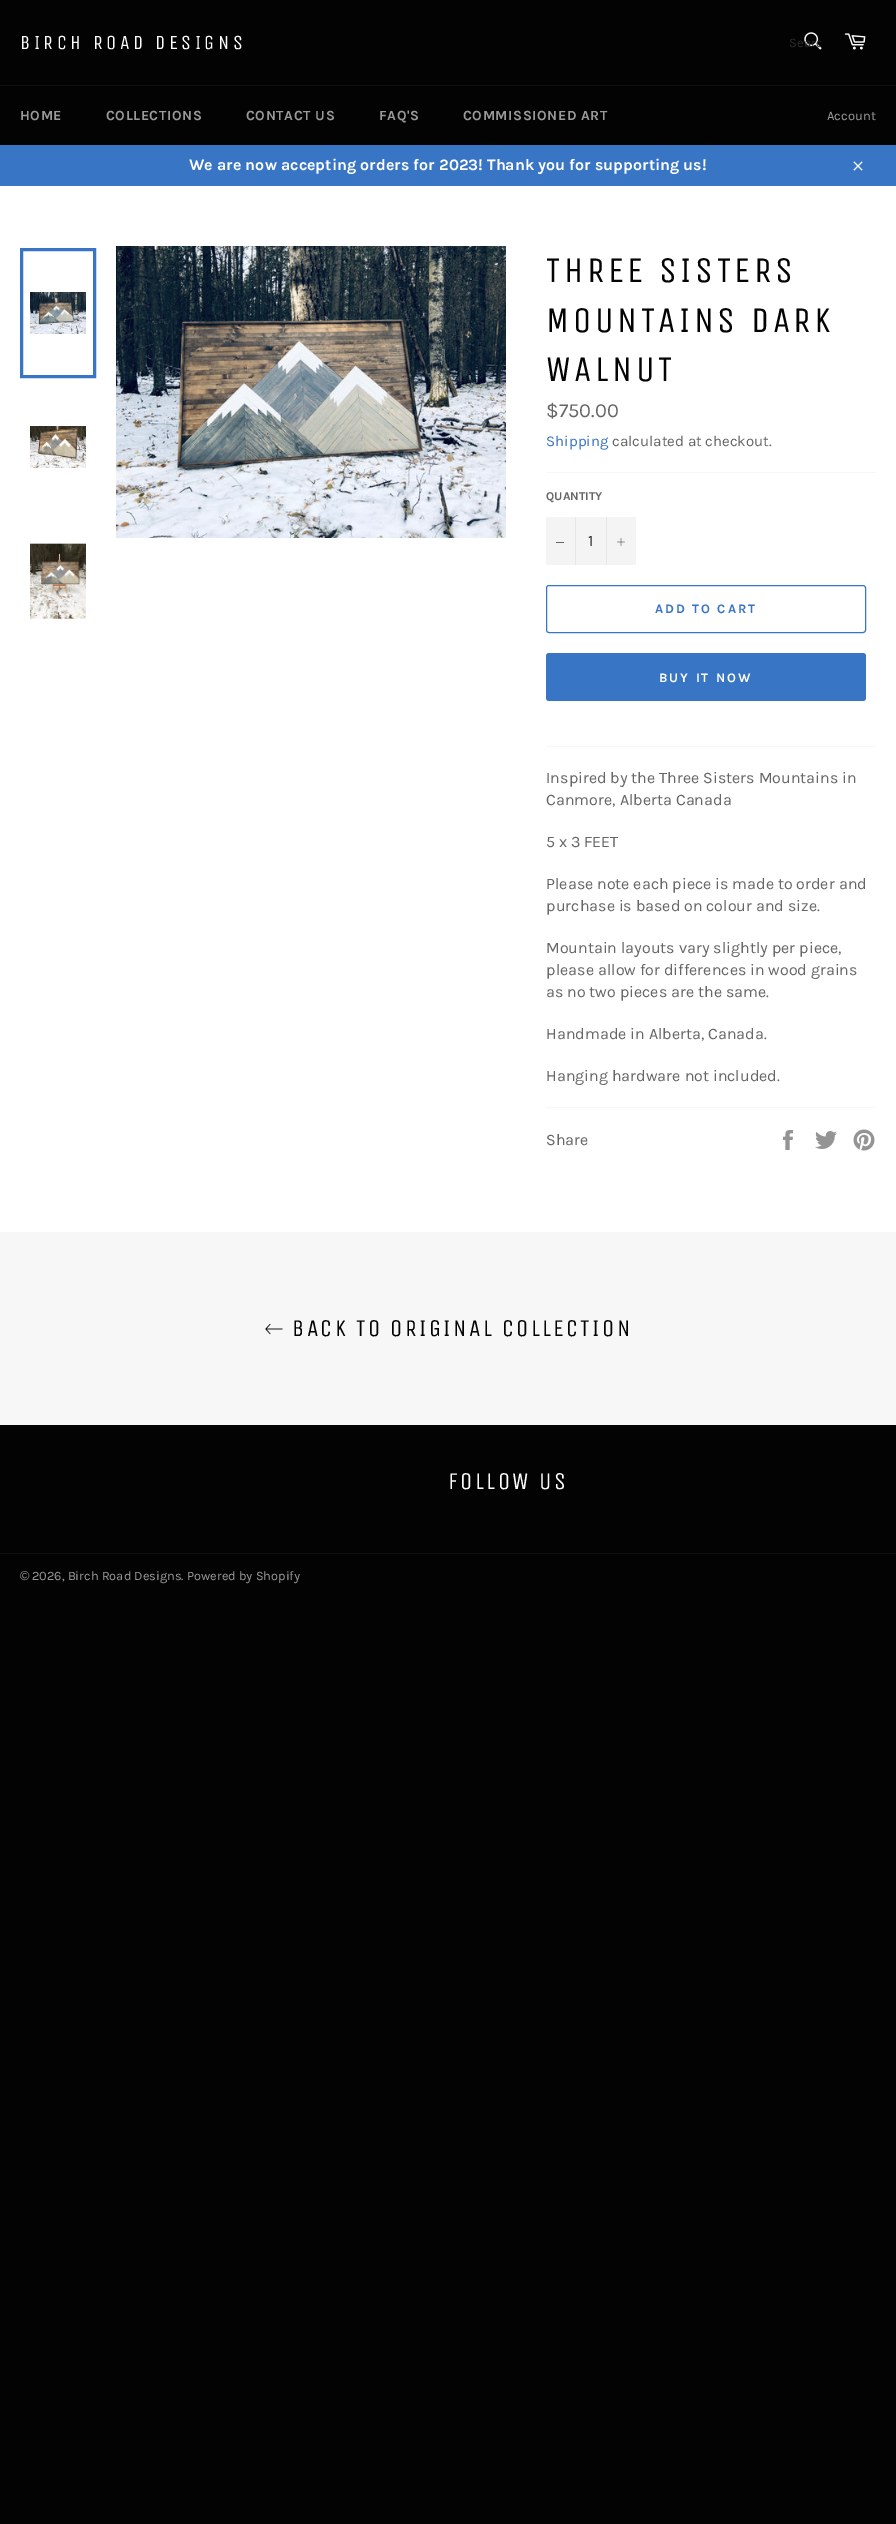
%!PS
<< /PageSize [896 2524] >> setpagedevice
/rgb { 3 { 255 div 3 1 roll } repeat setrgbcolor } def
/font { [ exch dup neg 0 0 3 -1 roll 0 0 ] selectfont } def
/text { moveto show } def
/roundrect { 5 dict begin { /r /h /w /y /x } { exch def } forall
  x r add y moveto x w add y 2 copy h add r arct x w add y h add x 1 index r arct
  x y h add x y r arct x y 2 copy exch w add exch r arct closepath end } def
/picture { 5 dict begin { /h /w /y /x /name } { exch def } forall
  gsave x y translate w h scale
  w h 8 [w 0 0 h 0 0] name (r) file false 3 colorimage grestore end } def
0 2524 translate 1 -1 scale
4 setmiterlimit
3 3 3 rgb
0 0 896 2524 rectfill
(img_01.rgb) 804 32 18 18 picture
(img_02.rgb) 844 33 22 17 picture
16 16 16 rgb
0 85 896 1 rectfill
57 117 197 rgb
0 145 896 41 rectfill
(img_03.rgb) 853 161 10 10 picture
255 255 255 rgb
0 186 896 1046 rectfill
(img_04.rgb) 30 292 56 42 picture
57 117 197 rgb
3 setlinewidth
21.5 249.5 73 127 rectstroke
(img_05.rgb) 30 426 56 42 picture
(img_06.rgb) 30 543 56 76 picture
(img_07.rgb) 116 246 390 292 picture
247 247 247 rgb
546 472 330 1 rectfill
244 244 244 rgb
546 517 90 48 rectfill
231 231 231 rgb
575 517 1 48 rectfill
102 102 102 rgb
556 542 8 1 rectfill
231 231 231 rgb
606 517 1 48 rectfill
(img_08.rgb) 617 538 8 8 picture
57 117 197 rgb
1 setlinewidth
546.5 585.5 319 47 2.5 roundrect stroke
546 653 320 48 3 roundrect fill
247 247 247 rgb
546 746 330 1 rectfill
546 1107 330 1 rectfill
(img_09.rgb) 783 1130 10 20 picture
(img_10.rgb) 815 1131 22 18 picture
(img_11.rgb) 853 1129 22 22 picture
0 1232 896 193 rectfill
(img_12.rgb) 265 1323 18 12 picture
16 16 16 rgb
0 1553 896 1 rectfill
/UnicaOne-Regular 20 font
255 255 255 rgb
20 49 moveto 3.6 0 (BIRCH ROAD DESIGNS) ashow
gsave
789 35 32 15 rectclip
/Karla-Regular 13 font
43 43 43 rgb
(Searc) 789 47 text
grestore
/Karla-Bold 14 font
154 154 154 rgb
20 120 moveto 0.6 0 (HOME) ashow
106 120 moveto 0.6 0 (COLLECTIONS) ashow
246 120 moveto 0.6 0 (CONTACT US) ashow
379 120 moveto 0.6 0 (FAQ'S) ashow
463 120 moveto 0.6 0 (COMMISSIONED ART) ashow
/Karla-Regular 13 font
(Account) 827 120 text
/Karla-Bold 16 font
255 255 255 rgb
(We are now accepting orders for 2023! Thank you for supporting us!) 189 170 text
/UnicaOne-Regular 36 font
3 3 3 rgb
546 282 moveto 3.6 0 (THREE SISTERS) ashow
546 332 moveto 3.6 0 (MOUNTAINS DARK) ashow
546 381 moveto 3.6 0 (WALNUT) ashow
/Karla-Regular 20 font
102 102 102 rgb
($750.00) 546 417 text
/Karla-Regular 15 font
57 117 197 rgb
(Shipping) 546 446 text
102 102 102 rgb
(calculated at checkout.) 612 446 text
/Karla-Bold 12 font
(QUANTITY) 546 500 text
/Karla-Regular 16 font
51 51 51 rgb
(1) 588 546 text
/Karla-Bold 13 font
57 117 197 rgb
655 613 moveto 2 0 (ADD TO CART) ashow
255 255 255 rgb
659 682 moveto 2 0 (BUY IT NOW) ashow
/Karla-Regular 16 font
102 102 102 rgb
(Inspired by the Three Sisters Mountains in) 546 783 text
(Canmore, Alberta Canada) 546 805 text
(5 x 3 FEET) 546 847 text
(Please note each piece is made to order and) 546 889 text
(purchase is based on colour and size.) 546 911 text
(Mountain layouts vary slightly per piece,) 546 953 text
(please allow for differences in wood grains) 546 975 text
(as no two pieces are the same.) 546 997 text
(Handmade in Alberta, Canada.) 546 1039 text
(Hanging hardware not included.) 546 1081 text
(Share) 546 1145 text
/UnicaOne-Regular 24 font
3 3 3 rgb
292 1336 moveto 2.4 0 (BACK TO ORIGINAL COLLECTION) ashow
255 255 255 rgb
448 1489 moveto 2.4 0 (FOLLOW US) ashow
/LiberationSans-Regular 12.8 font
154 154 154 rgb
(©) 20 1580 text
/Karla-Regular 12.8 font
(2026, Birch Road Designs. Powered by Shopify) 32 1580 text
showpage
